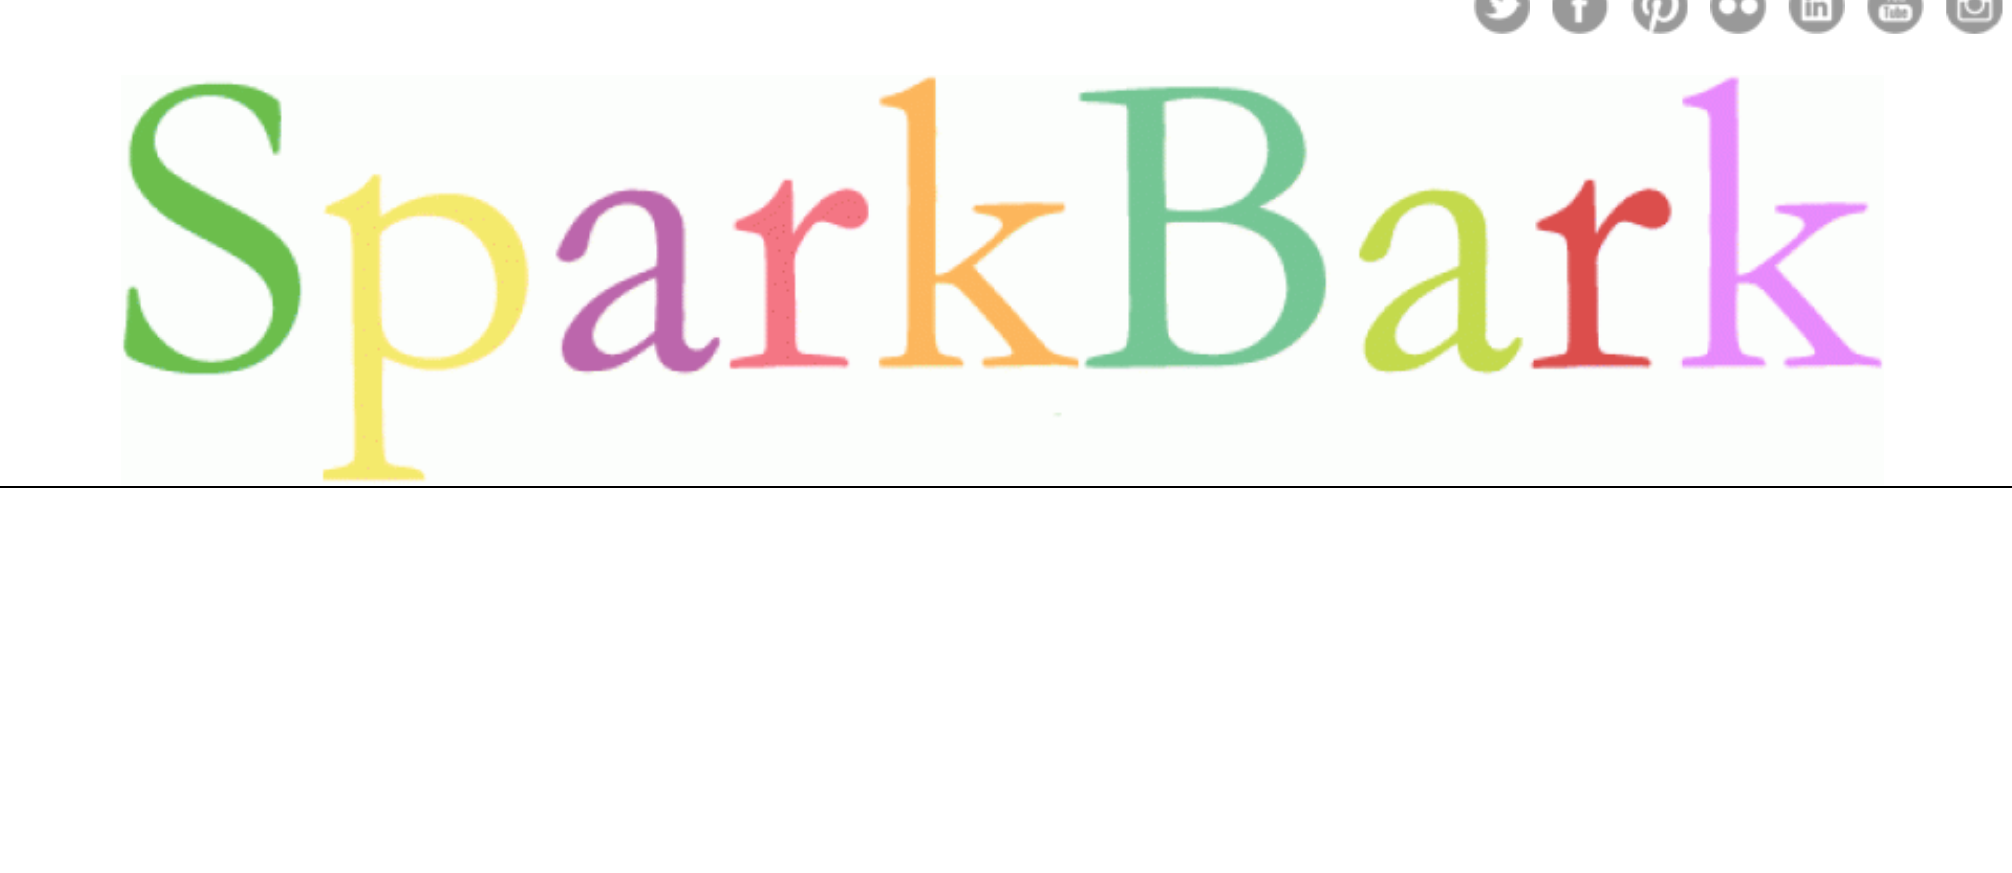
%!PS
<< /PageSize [2012 873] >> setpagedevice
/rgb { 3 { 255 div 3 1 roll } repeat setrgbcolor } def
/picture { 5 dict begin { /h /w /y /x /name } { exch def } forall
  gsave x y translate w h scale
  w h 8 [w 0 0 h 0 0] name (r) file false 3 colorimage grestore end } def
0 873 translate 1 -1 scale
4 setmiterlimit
255 255 255 rgb
0 0 2012 873 rectfill
(img_01.rgb) 1473 0 57 34 picture
(img_02.rgb) 1552 0 57 34 picture
(img_03.rgb) 1631 0 57 34 picture
(img_04.rgb) 1710 0 57 34 picture
(img_05.rgb) 1788 0 57 34 picture
(img_06.rgb) 1867 0 57 34 picture
(img_07.rgb) 1946 0 57 34 picture
0 0 0 rgb
0 486 2012 2 rectfill
(img_08.rgb) 121 75 1763 410 picture
showpage
